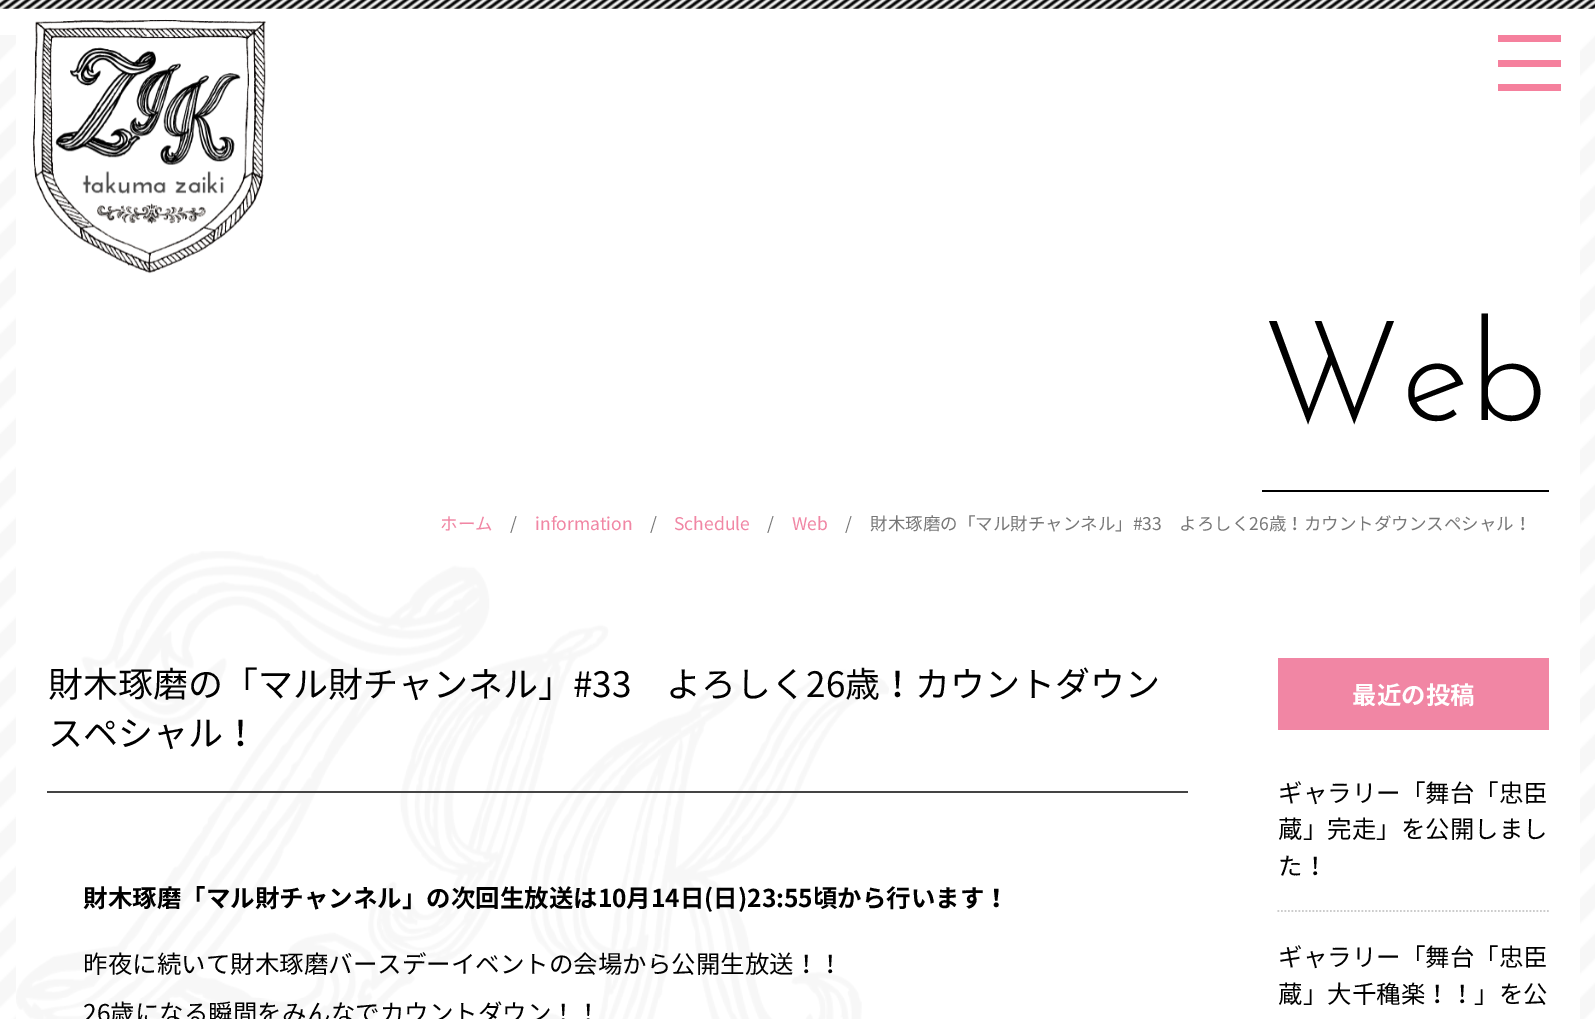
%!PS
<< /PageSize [1595 1019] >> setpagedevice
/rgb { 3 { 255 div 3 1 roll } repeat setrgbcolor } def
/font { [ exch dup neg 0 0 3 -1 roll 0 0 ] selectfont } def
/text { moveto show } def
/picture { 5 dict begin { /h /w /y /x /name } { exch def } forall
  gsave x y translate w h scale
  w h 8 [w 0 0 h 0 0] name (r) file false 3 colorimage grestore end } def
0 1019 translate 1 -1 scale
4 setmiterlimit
255 255 255 rgb
0 0 1595 1019 rectfill
(img_01.rgb) 0 0 1595 9 picture
(img_03.rgb) 0 35 1595 984 picture
16 35 1564 984 rectfill
(img_02.rgb) 32 19 234 255 picture
245 128 157 rgb
1498 35 63 7 rectfill
1498 60 63 7 rectfill
1498 84 63 7 rectfill
(img_04.rgb) 16 551 873 468 picture
0 0 0 rgb
1262 490 287 2 rectfill
68 68 68 rgb
47 791 1141 2 rectfill
241 134 164 rgb
1278 658 271 72 rectfill
204 204 204 rgb
1.8 setlinewidth
[1.75 1.75] 0 setdash
1277.5 911 moveto 271.5 0 rlineto stroke
/JosefinSans-Light 140 font
0 0 0 rgb
(Web) 1262 420 text
/NotoSansJP-Regular 17.5 font
241 134 164 rgb
(ホーム) 440 530 text
119 119 119 rgb
(/) 510 530 text
241 134 164 rgb
(information) 535 530 text
119 119 119 rgb
(/) 650 530 text
241 134 164 rgb
(Schedule) 674 530 text
119 119 119 rgb
(/) 767 530 text
241 134 164 rgb
(Web) 792 530 text
119 119 119 rgb
(/) 845 530 text
(財木琢磨の「マル財チャンネル」#33　よろしく26歳！カウントダウンスペシャル！) 870 530 text
/NotoSansJP-Regular 35 font
0 0 0 rgb
(財木琢磨の「マル財チャンネル」#33　よろしく26歳！カウントダウン) 48 697 text
(スペシャル！) 48 746 text
/NotoSansJP-Bold 24.5 font
(財木琢磨「マル財チャンネル」の次回生放送は10月14日\(日\)23:55頃から行います！) 83 907 text
/NotoSansJP-Regular 24.5 font
(昨夜に続いて財木琢磨バースデーイベントの会場から公開生放送！！) 83 973 text
(26歳になる瞬間をみんなでカウントダウン！！) 83 1022 text
/NotoSansJP-Bold 24.5 font
255 255 255 rgb
(最近の投稿) 1352 704 text
/NotoSansJP-Regular 24.5 font
0 0 0 rgb
(ギャラリー「舞台「忠臣) 1278 802 text
(蔵」完走」を公開しまし) 1278 838 text
(た！) 1278 875 text
(ギャラリー「舞台「忠臣) 1278 966 text
(蔵」大千穐楽！！」を公) 1278 1003 text
showpage
